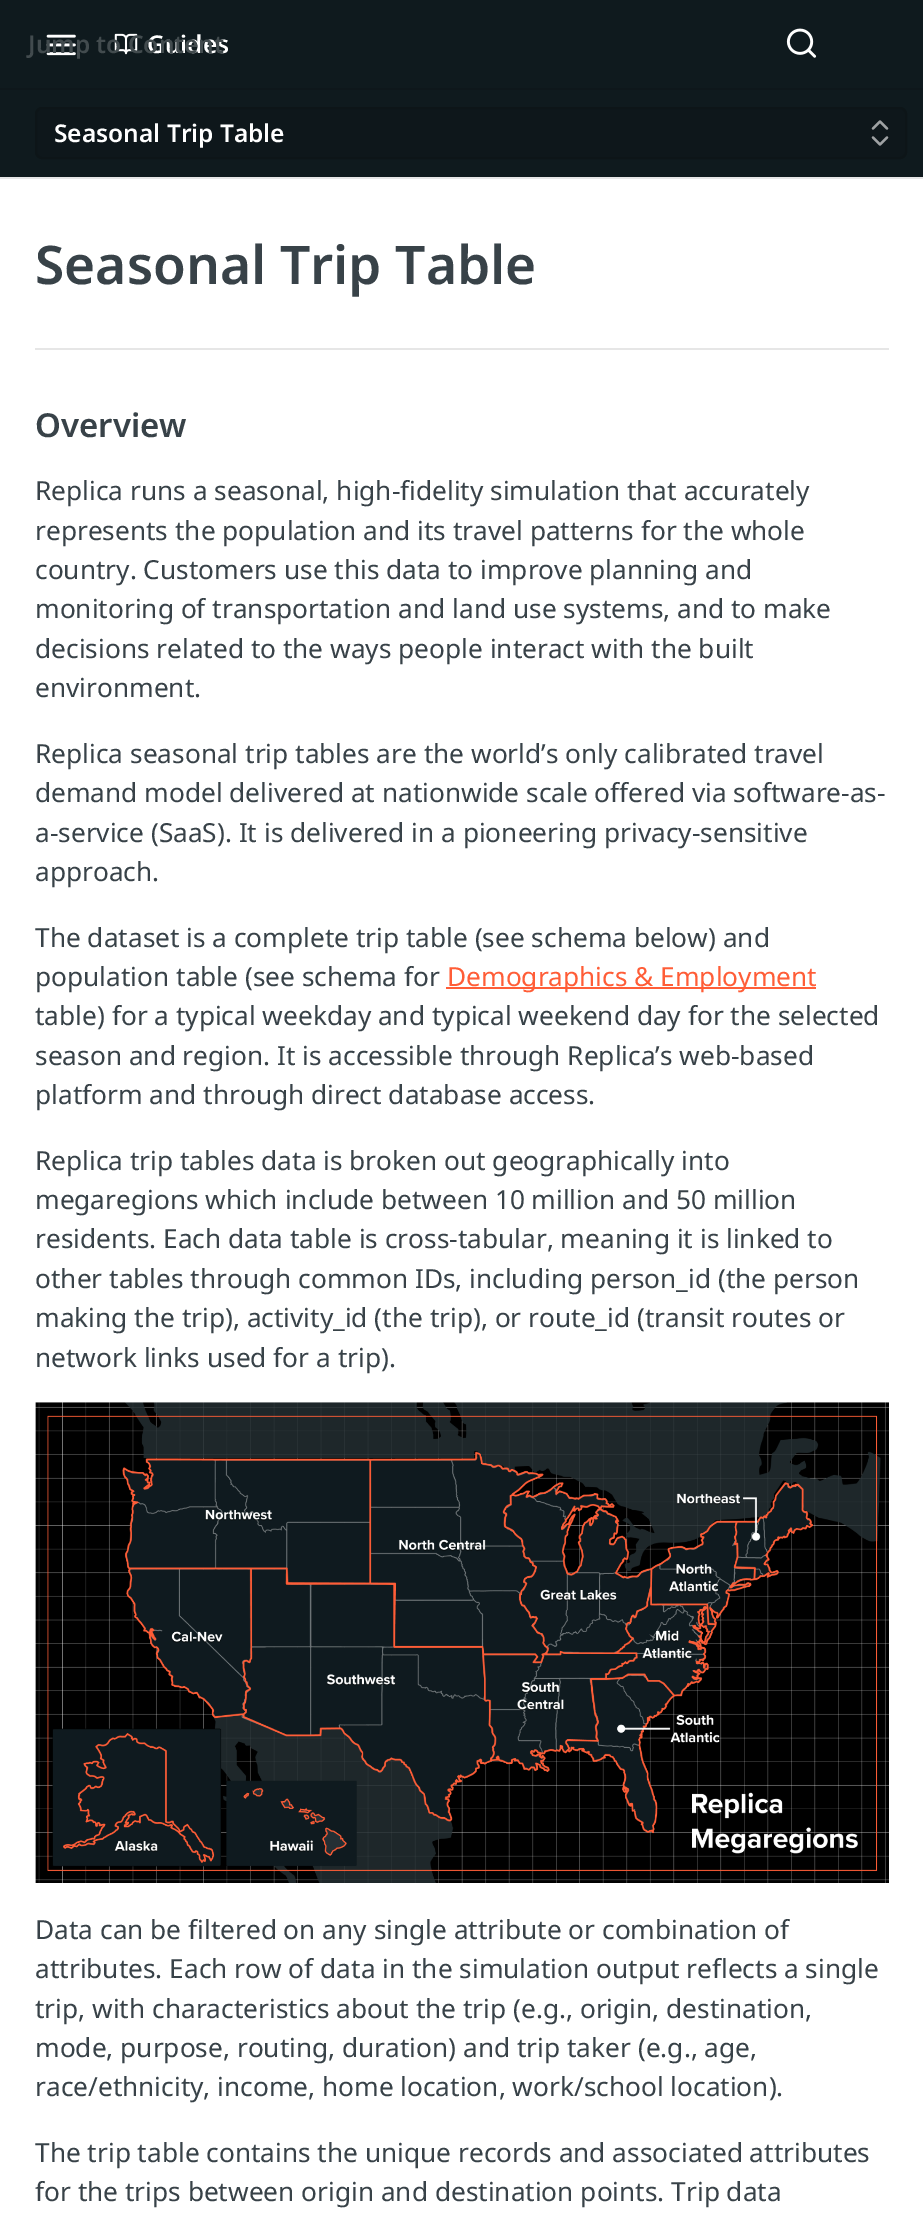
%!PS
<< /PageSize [923 2215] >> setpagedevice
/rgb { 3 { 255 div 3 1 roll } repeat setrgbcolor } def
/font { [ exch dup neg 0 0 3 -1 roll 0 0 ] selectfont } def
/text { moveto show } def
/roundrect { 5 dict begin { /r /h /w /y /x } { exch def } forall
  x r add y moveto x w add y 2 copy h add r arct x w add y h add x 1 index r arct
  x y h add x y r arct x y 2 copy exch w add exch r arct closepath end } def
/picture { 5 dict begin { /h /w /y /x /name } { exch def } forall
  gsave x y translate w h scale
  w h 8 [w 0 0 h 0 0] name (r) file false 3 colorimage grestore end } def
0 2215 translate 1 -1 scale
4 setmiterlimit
255 255 255 rgb
0 0 923 2215 rectfill
230 230 230 rgb
0 177 923 2 rectfill
15 26 30 rgb
0 0 923 177 rectfill
14 23 27 rgb
0 88 923 2 rectfill
(img_01.rgb) 46 34 30 22 picture
(img_02.rgb) 114 33 24 22 picture
(img_03.rgb) 786 28 31 30 picture
36 108 870 50 6 roundrect gsave fill grestore
13 21 24 rgb
2 setlinewidth
stroke
159 162 164 rgb
2.3 setlinewidth
1 setlinecap
1 setlinejoin
873 137.5 moveto 7 7 rlineto 7 -7 rlineto 887 128.5 moveto -7 -7 rlineto -7 7 rlineto stroke
230 230 230 rgb
35 348 854 2 rectfill
255 93 55 rgb
446 987 370 2 rectfill
(img_04.rgb) 35 1402 854 481 picture
/NotoSans-SemiBold 24.5 font
255 255 255 rgb
(Guides) 147 53 text
66 75 78 rgb
(Jump to Content) 28 53 text
255 255 255 rgb
(Seasonal Trip Table) 54 142 text
/NotoSans-SemiBold 53.25 font
56 66 72 rgb
(Seasonal Trip Table) 35 284 text
/NotoSans-SemiBold 33 font
(Overview) 35 437 text
/NotoSans-Regular 26.25 font
(Replica runs a seasonal, high-fidelity simulation that accurately) 35 500 text
(represents the population and its travel patterns for the whole) 35 540 text
(country. Customers use this data to improve planning and) 35 579 text
(monitoring of transportation and land use systems, and to make) 35 618 text
(decisions related to the ways people interact with the built) 35 658 text
(environment.) 35 697 text
(Replica seasonal trip tables are the world’s only calibrated travel) 35 763 text
(demand model delivered at nationwide scale offered via software-as-) 35 802 text
(a-service \(SaaS\). It is delivered in a pioneering privacy-sensitive) 35 842 text
(approach.) 35 881 text
(The dataset is a complete trip table \(see schema below\) and) 35 947 text
(population table \(see schema for) 35 986 text
255 93 55 rgb
(Demographics & Employment) 447 986 text
56 66 72 rgb
(table\) for a typical weekday and typical weekend day for the selected) 35 1025 text
(season and region. It is accessible through Replica’s web-based) 35 1065 text
(platform and through direct database access.) 35 1104 text
(Replica trip tables data is broken out geographically into) 35 1170 text
(megaregions which include between 10 million and 50 million) 35 1209 text
(residents. Each data table is cross-tabular, meaning it is linked to) 35 1248 text
(other tables through common IDs, including person_id \(the person) 35 1288 text
(making the trip\), activity_id \(the trip\), or route_id \(transit routes or) 35 1327 text
(network links used for a trip\).) 35 1367 text
(Data can be filtered on any single attribute or combination of) 35 1939 text
(attributes. Each row of data in the simulation output reflects a single) 35 1978 text
(trip, with characteristics about the trip \(e.g., origin, destination,) 35 2018 text
(mode, purpose, routing, duration\) and trip taker \(e.g., age,) 35 2057 text
(race/ethnicity, income, home location, work/school location\).) 35 2096 text
(The trip table contains the unique records and associated attributes) 35 2162 text
(for the trips between origin and destination points. Trip data) 35 2201 text
showpage
